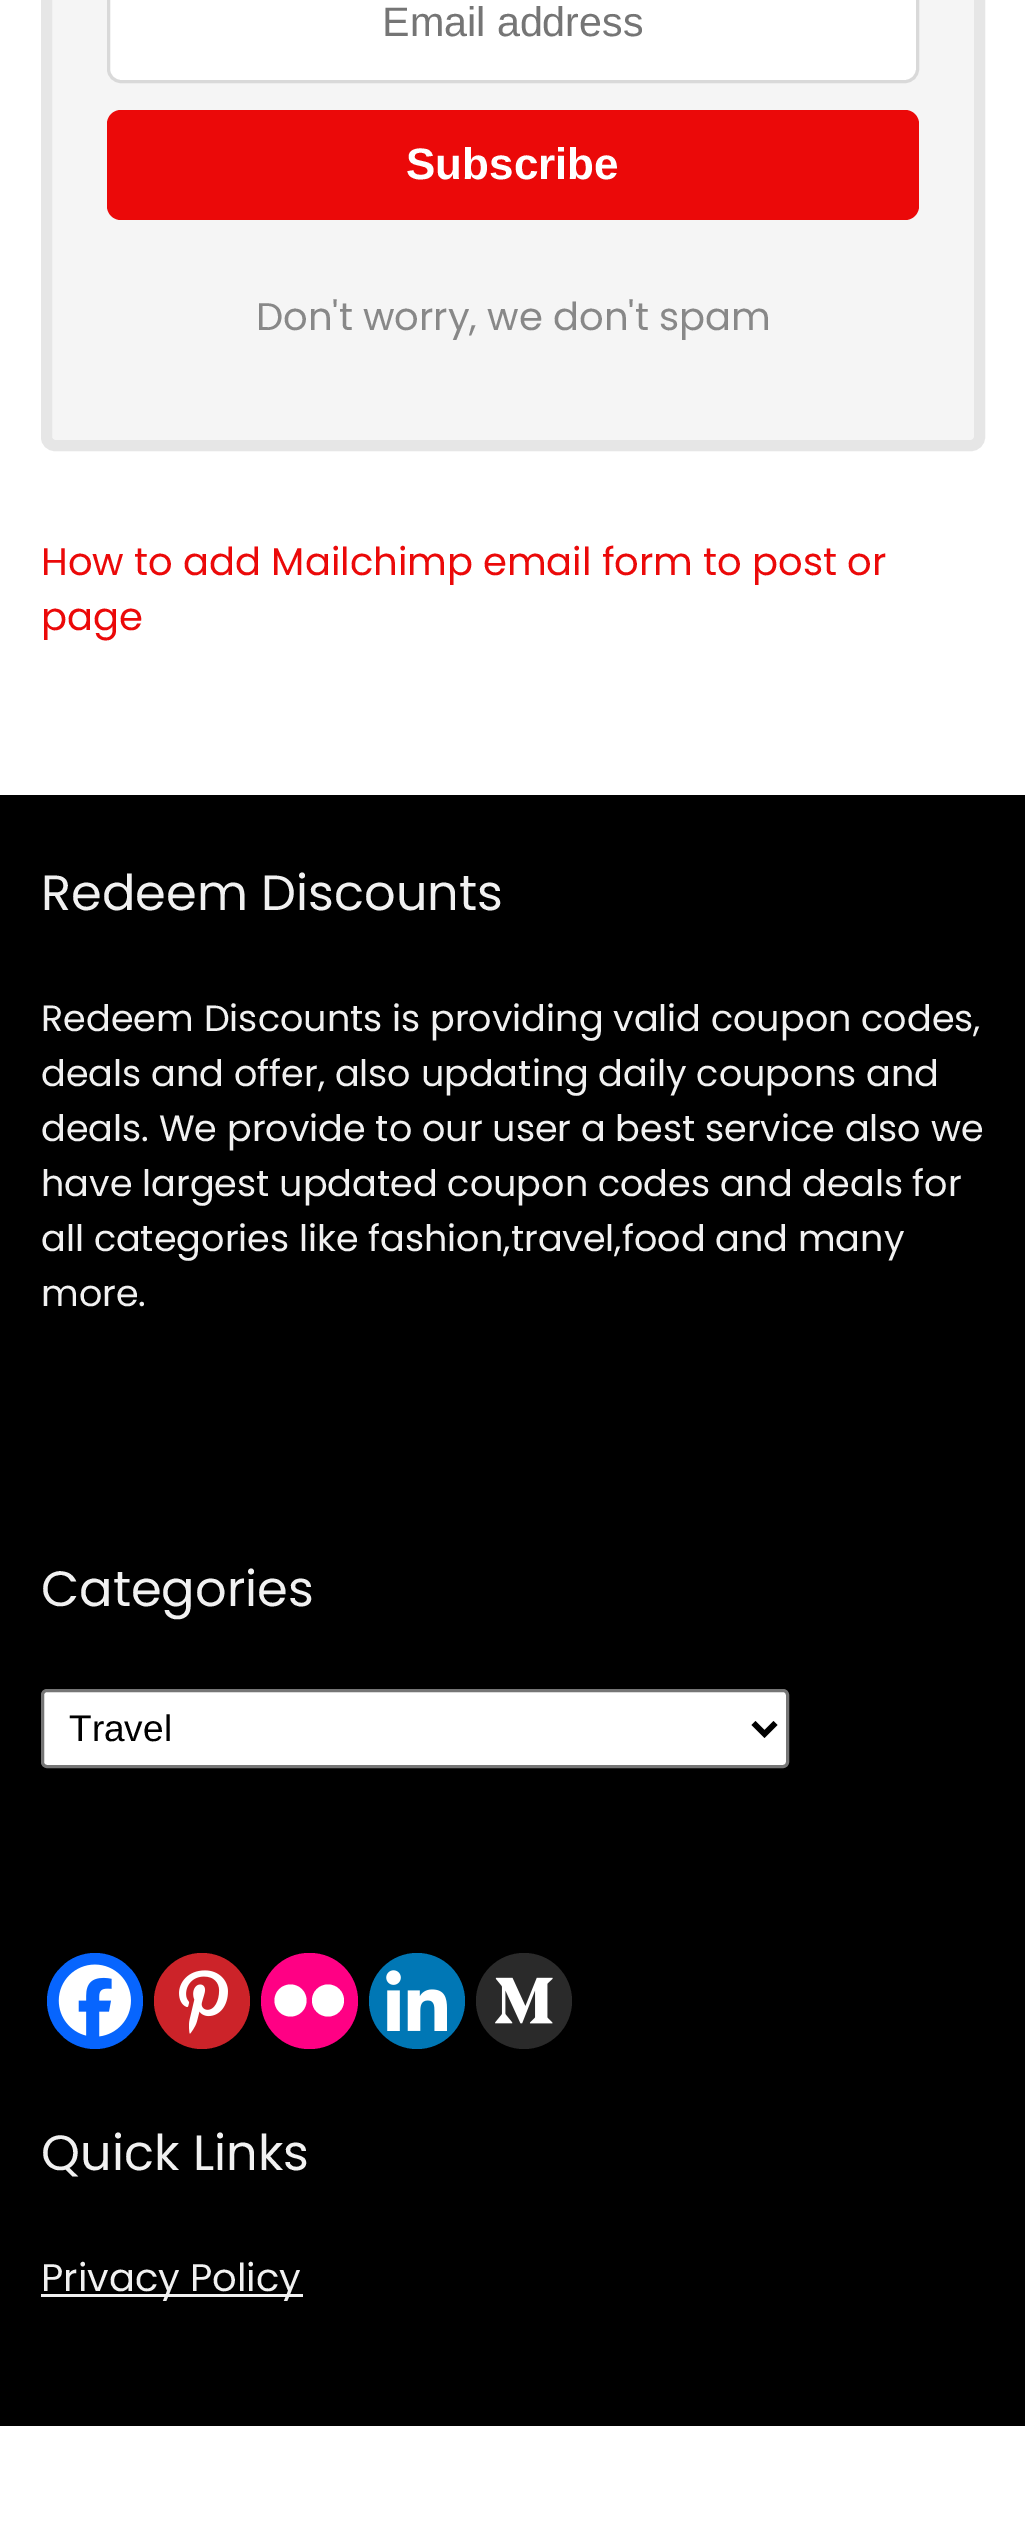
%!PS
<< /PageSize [1025 2533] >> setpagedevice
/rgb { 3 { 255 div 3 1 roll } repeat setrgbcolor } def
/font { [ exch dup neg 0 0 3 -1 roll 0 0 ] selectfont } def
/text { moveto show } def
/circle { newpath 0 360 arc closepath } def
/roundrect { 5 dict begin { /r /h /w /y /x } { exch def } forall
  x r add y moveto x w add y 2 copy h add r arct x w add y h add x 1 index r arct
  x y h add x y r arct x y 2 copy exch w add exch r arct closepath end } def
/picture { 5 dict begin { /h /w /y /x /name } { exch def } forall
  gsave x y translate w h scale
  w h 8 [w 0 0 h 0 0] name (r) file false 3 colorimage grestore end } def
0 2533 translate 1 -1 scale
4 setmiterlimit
255 255 255 rgb
0 0 1025 2533 rectfill
245 245 245 rgb
46.5 -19.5 933 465 8.5 roundrect gsave fill grestore
230 230 230 rgb
11 setlinewidth
stroke
255 255 255 rgb
108.5 -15.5 809 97 12.5 roundrect gsave fill grestore
217 217 217 rgb
3 setlinewidth
stroke
235 9 9 rgb
107 110 812 110 14 roundrect fill
0 0 0 rgb
0 795 1025 1631 rectfill
255 255 255 rgb
42.5 1690.5 745 76 4.5 roundrect gsave fill grestore
118 118 118 rgb
stroke
0 0 0 rgb
5.5 setlinewidth
753.5 1723 moveto 11 11 rlineto 11 -11 rlineto stroke
7 101 254 rgb
95 2001 48 circle fill
(img_01.rgb) 58 1964 73 73 picture
204 35 41 rgb
202 2001 48 circle fill
(img_02.rgb) 179 1970 49 64 picture
255 0 132 rgb
261 1953 97 96 48 roundrect fill
255 255 255 rgb
290.5 2000.5 16 circle fill
328 2000.5 16 circle fill
0 119 181 rgb
417 2001 48 circle fill
(img_03.rgb) 386 1970 61 61 picture
42 42 42 rgb
524 2001 48 circle fill
(img_04.rgb) 495 1977 58 47 picture
241 241 241 rgb
41 2294 262 3 rectfill
/LiberationSans-Regular 41.25 font
117 117 117 rgb
(Email address) 382 36 text
/LiberationSans-Bold 44 font
255 255 255 rgb
(Subscribe) 406 179 text
/Poppins-Regular 38.5 font
136 136 136 rgb
(Don't worry, we don't spam) 256 330 text
235 9 9 rgb
(How to add Mailchimp email form to post or) 41 575 text
(page) 41 630 text
/Poppins-Regular 49.5 font
241 241 241 rgb
(Redeem Discounts) 41 910 text
/Poppins-Regular 36.6 font
(Redeem Discounts is providing valid coupon codes,) 41 1031 text
(deals and offer, also updating daily coupons and) 41 1086 text
(deals. We provide to our user a best service also we) 41 1141 text
(have largest updated coupon codes and deals for) 41 1196 text
(all categories like fashion,travel,food and many) 41 1251 text
(more.) 41 1306 text
/Poppins-Regular 49.5 font
(Categories) 41 1606 text
/LiberationSans-Regular 37 font
0 0 0 rgb
(Travel) 69 1741 text
/Poppins-Regular 49.5 font
241 241 241 rgb
(Quick Links) 41 2170 text
/Poppins-Regular 38.5 font
(Privacy Policy) 41 2291 text
showpage
